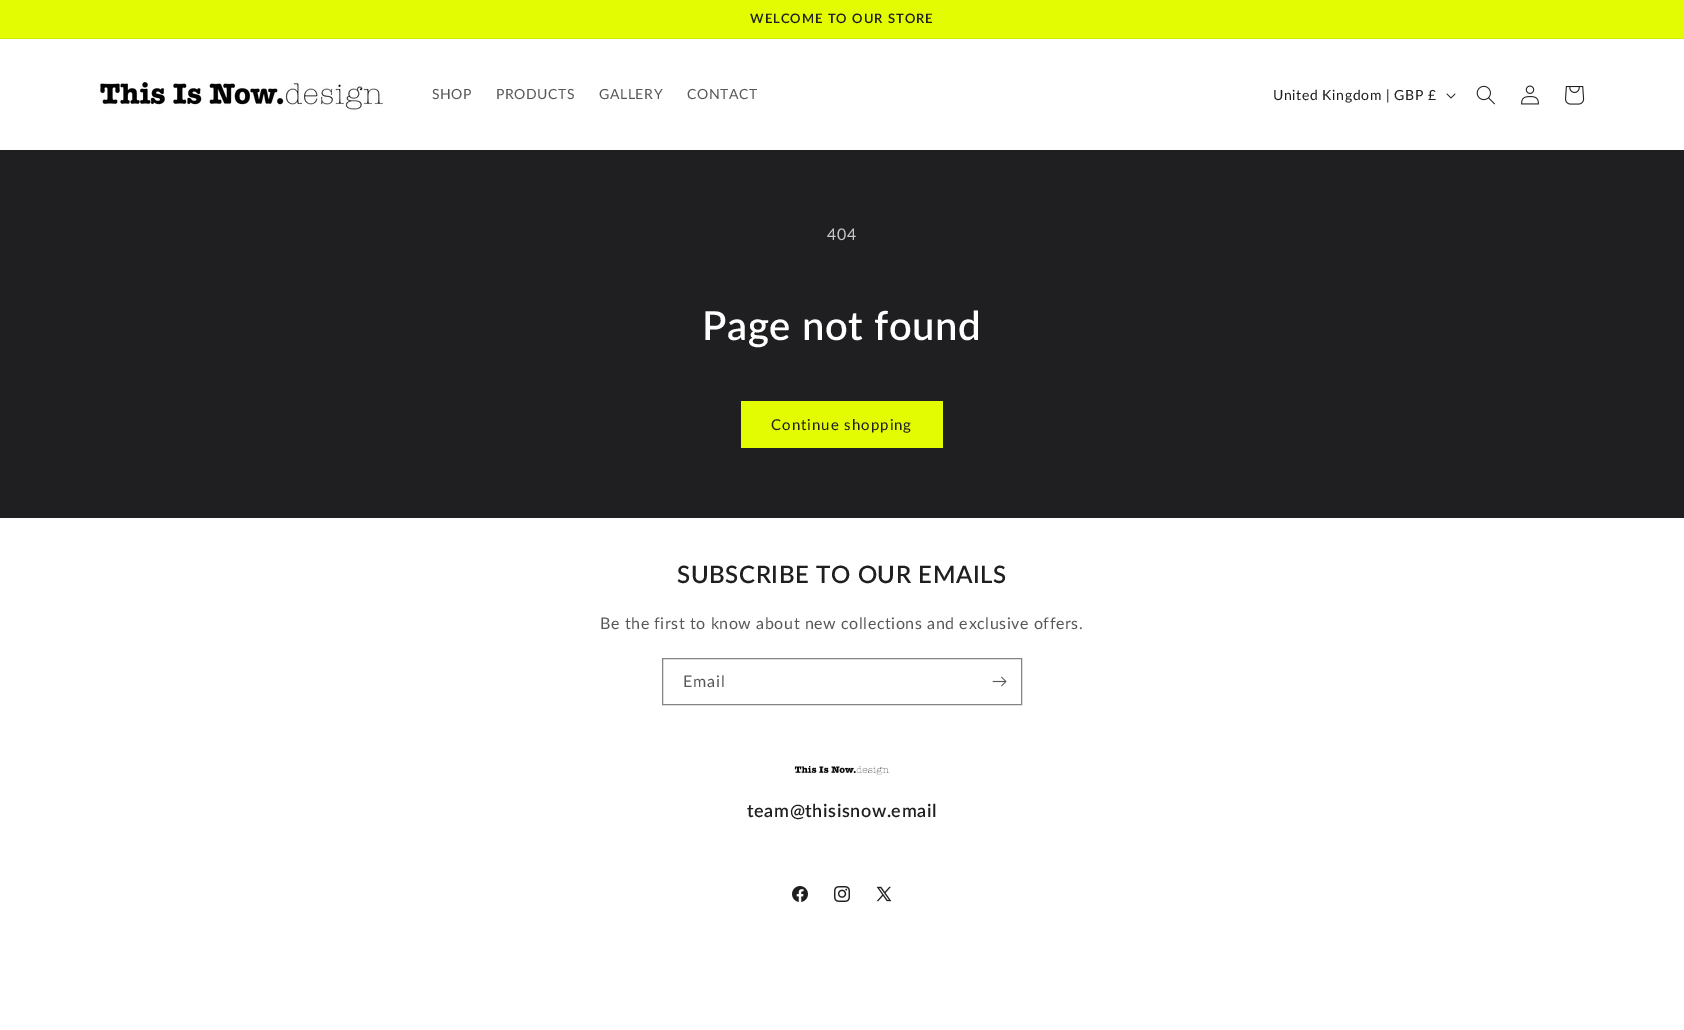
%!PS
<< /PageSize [1684 1030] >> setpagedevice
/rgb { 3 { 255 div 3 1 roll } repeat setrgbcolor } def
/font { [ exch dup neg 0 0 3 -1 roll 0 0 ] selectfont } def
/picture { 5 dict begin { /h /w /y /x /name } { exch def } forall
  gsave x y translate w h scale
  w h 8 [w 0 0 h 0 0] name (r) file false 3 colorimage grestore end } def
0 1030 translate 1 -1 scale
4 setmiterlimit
31 31 33 rgb
0 0 1684 1030 rectfill
227 252 2 rgb
0 0 1684 38 rectfill
211 234 4 rgb
0 38 1684 1 rectfill
255 255 255 rgb
0 39 1684 111 rectfill
(img_01.rgb) 100 80 283 30 picture
(img_02.rgb) 1446 93 10 6 picture
(img_03.rgb) 1476 85 19 20 picture
(img_04.rgb) 1521 85 18 20 picture
(img_05.rgb) 1565 86 20 19 picture
227 252 2 rgb
741 401 202 47 rectfill
255 255 255 rgb
0 518 1684 512 rectfill
132 132 133 rgb
662.5 658.5 359 46 rectstroke
(img_06.rgb) 992 676 15 11 picture
(img_07.rgb) 794 765 96 10 picture
(img_08.rgb) 792 886 16 16 picture
(img_09.rgb) 834 886 16 16 picture
(img_10.rgb) 876 886 16 16 picture
/Lato-SemiBold 13 font
31 31 33 rgb
750 23 moveto 1 0 (WELCOME TO OUR STORE) ashow
/Lato-Regular 14 font
87 87 89 rgb
432 99 moveto 0.6 0 (SHOP) ashow
496 99 moveto 0.6 0 (PRODUCTS) ashow
599 99 moveto 0.6 0 (GALLERY) ashow
687 99 moveto 0.6 0 (CONTACT) ashow
31 31 33 rgb
1273 100 moveto 0.6 0 (United Kingdom | GBP £) ashow
/Lato-Regular 16 font
199 199 200 rgb
827 240 moveto 0.6 0 (404) ashow
/Lato-SemiBold 40 font
255 255 255 rgb
702 340 moveto 0.6 0 (Page not found) ashow
/Lato-Regular 15 font
31 31 33 rgb
771 430 moveto 1 0 (Continue shopping) ashow
/Lato-SemiBold 24 font
677 583 moveto 0.6 0 (SUBSCRIBE TO OUR EMAILS) ashow
/Lato-Regular 16 font
87 87 89 rgb
600 629 moveto 0.6 0 (Be the first to know about new collections and exclusive offers.) ashow
683 687 moveto 1 0 (Email) ashow
/Lato-SemiBold 18 font
31 31 33 rgb
747 817 moveto 0.6 0 (team@thisisnow.email) ashow
showpage
